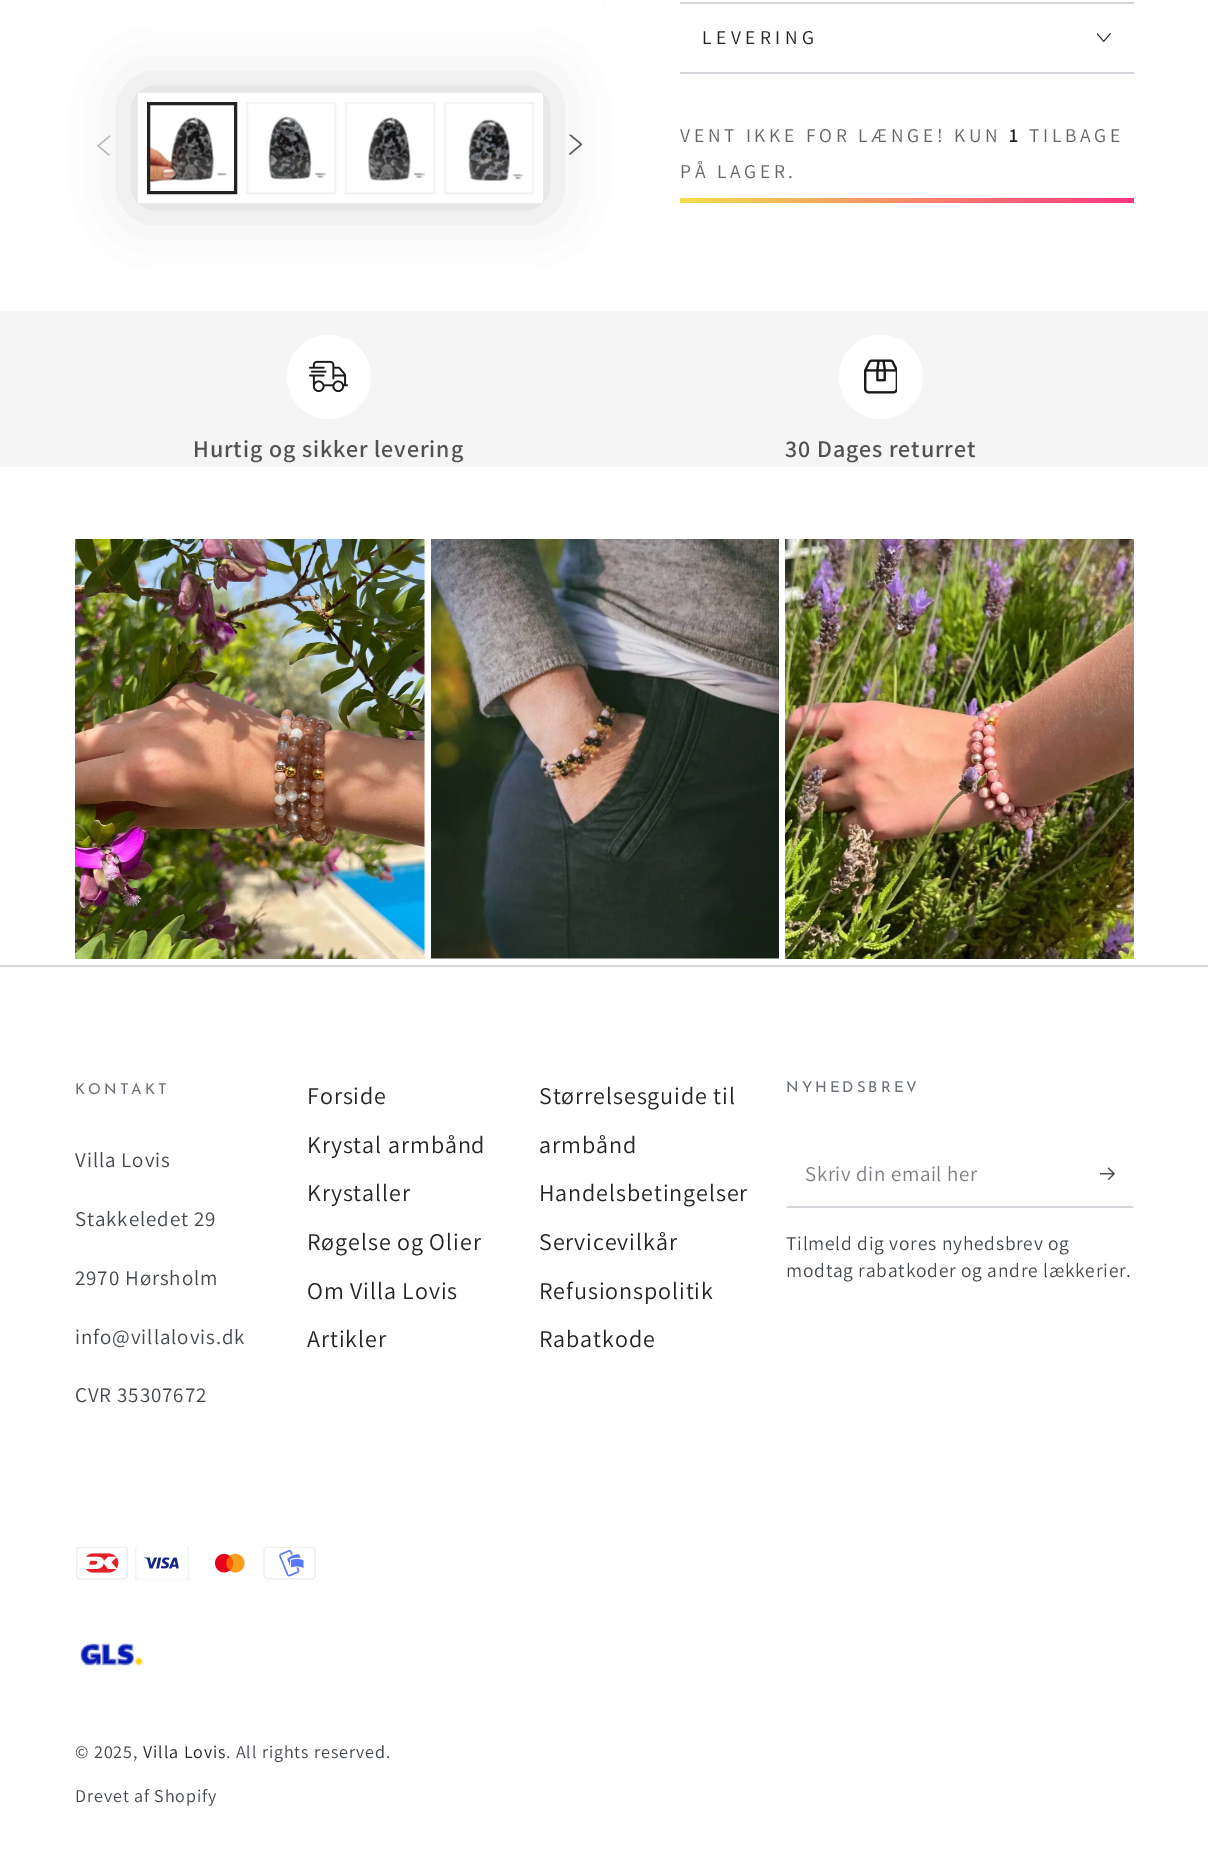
%!PS
<< /PageSize [1208 1862] /PageUsesTransparency true >> setpagedevice
/rgb { 3 { 255 div 3 1 roll } repeat setrgbcolor } def
/font { [ exch dup neg 0 0 3 -1 roll 0 0 ] selectfont } def
/alpha { dup .setfillconstantalpha .setstrokeconstantalpha } def
/circle { newpath 0 360 arc closepath } def
/roundrect { 5 dict begin { /r /h /w /y /x } { exch def } forall
  x r add y moveto x w add y 2 copy h add r arct x w add y h add x 1 index r arct
  x y h add x y r arct x y 2 copy exch w add exch r arct closepath end } def
/shadow { 12 dict begin { /a /b /q /h /w /y /x } { exch def } forall gsave /was 0 def
  9 -2 -9 { dup b mul 4 div /e exch def 1 sub .425 mul 2.718 exch exp 1 add a .99 .min exch div /now exch def
    1 1 now sub 1 was sub div sub alpha /was now def
    w h .min e 2 mul add 0 gt { x e sub y e sub w e 2 mul add h e 2 mul add
      q e add b .6 mul add w h .min 2 div e add .min 0 .max roundrect fill } if } for grestore end } def
/picture { 5 dict begin { /h /w /y /x /name } { exch def } forall
  gsave x y translate w h scale
  w h 8 [w 0 0 h 0 0] name (r) file false 3 colorimage grestore end } def
0 .pushpdf14devicefilter
0 1862 translate 1 -1 scale
4 setmiterlimit
255 255 255 rgb
0 0 1208 1862 rectfill
(img_01.rgb) 75 0 530 48 picture
33 35 38 rgb
138 93 405 110 0 30 0.2 shadow
255 255 255 rgb
138 93 405 110 rectfill
(img_02.rgb) 146 102 88 92 picture
33 35 38 rgb
3 setlinewidth
148.5 103.5 87 89 rectstroke
243 243 243 rgb
246 102 90 92 rectfill
(img_03.rgb) 246 102 90 92 picture
0.04 alpha
33 35 38 rgb
2 setlinewidth
247 103 88 90 rectstroke
1 alpha
243 243 243 rgb
345 102 90 92 rectfill
(img_04.rgb) 345 102 90 92 picture
0.04 alpha
33 35 38 rgb
346 103 88 90 rectstroke
1 alpha
243 243 243 rgb
444 102 90 92 rectfill
(img_05.rgb) 444 102 90 92 picture
0.04 alpha
33 35 38 rgb
445 103 88 90 rectstroke
1 alpha
(img_06.rgb) 97 135 14 21 picture
(img_07.rgb) 569 134 14 21 picture
210 213 217 rgb
680 2 454 2 rectfill
680 72 454 2 rectfill
(img_08.rgb) 1097 33 14 9 picture
gsave 680 198 moveto 454 0 rlineto 0 5 rlineto -454 0 rlineto closepath clip newpath
<< /ShadingType 2 /ColorSpace /DeviceRGB /Coords [983 309 831 92] /Extend [true true] /Function << /FunctionType 2 /Domain [0 1] /C0 [1 0.204 0.518] /C1 [0.945 0.878 0.302] /N 1 >> >> shfill grestore
245 245 245 rgb
0 311 1208 156 rectfill
255 255 255 rgb
329 377 42 circle fill
(img_09.rgb) 309 360 39 33 picture
881 377 42 circle fill
(img_10.rgb) 864 359 33 35 picture
243 243 243 rgb
424 539 1 420 rectfill
(img_11.rgb) 75 539 350 420 picture
431 958 348 1 rectfill
(img_12.rgb) 431 539 348 420 picture
(img_13.rgb) 785 539 349 420 picture
210 213 217 rgb
0 965 1208 2 rectfill
1134 1208 moveto -348 0 rlineto 2 -2 rlineto 344 0 rlineto closepath fill
(img_14.rgb) 1100 1167 15 13 picture
(img_15.rgb) 76 1547 52 33 picture
(img_16.rgb) 135 1547 54 33 picture
(img_17.rgb) 215 1553 30 20 picture
(img_18.rgb) 263 1547 53 33 picture
(img_19.rgb) 80 1643 63 23 picture
/Assistant-Regular 19.5 font
33 35 38 rgb
702 44 moveto 4.5 0 (LEVERING) ashow
100 101 103 rgb
680 142 moveto 3.75 0 (VENT IKKE FOR LÆNGE! KUN) ashow
/Assistant-SemiBold 19.5 font
33 35 38 rgb
1009 142 moveto 3.75 0 (1) ashow
/Assistant-Regular 19.5 font
100 101 103 rgb
1029 142 moveto 3.75 0 (TILBAGE) ashow
680 178 moveto 3.75 0 (PÅ LAGER.) ashow
/Assistant-SemiBold 24 font
81 82 79 rgb
193 457 moveto 0.9 0 (Hurtig og sikker levering) ashow
785 457 moveto 0.9 0 (30 Dages returret) ashow
/JosefinSans-Regular 15 font
107 113 119 rgb
75 1094 moveto 3 0 (KONTAKT) ashow
/Assistant-Regular 21 font
66 71 76 rgb
75 1167 moveto 0.9 0 (Villa Lovis) ashow
75 1226 moveto 0.9 0 (Stakkeledet 29) ashow
75 1285 moveto 0.9 0 (2970 Hørsholm) ashow
75 1344 moveto 0.9 0 (info@villalovis.dk) ashow
75 1402 moveto 0.9 0 (CVR 35307672) ashow
/Assistant-Regular 24 font
33 35 38 rgb
307 1104 moveto 0.9 0 (Forside) ashow
307 1153 moveto 0.9 0 (Krystal armbånd) ashow
307 1201 moveto 0.9 0 (Krystaller) ashow
307 1250 moveto 0.9 0 (Røgelse og Olier) ashow
307 1299 moveto 0.9 0 (Om Villa Lovis) ashow
307 1347 moveto 0.9 0 (Artikler) ashow
539 1104 moveto 0.9 0 (Størrelsesguide til) ashow
539 1153 moveto 0.9 0 (armbånd) ashow
539 1201 moveto 0.9 0 (Handelsbetingelser) ashow
539 1250 moveto 0.9 0 (Servicevilkår) ashow
539 1299 moveto 0.9 0 (Refusionspolitik) ashow
539 1347 moveto 0.9 0 (Rabatkode) ashow
/JosefinSans-Regular 15 font
107 113 119 rgb
786 1092 moveto 3 0 (NYHEDSBREV) ashow
/Assistant-Regular 21 font
123 126 130 rgb
805 1181 moveto 0.6 0 (Skriv din email her) ashow
/Assistant-Regular 19.5 font
66 71 76 rgb
786 1250 moveto 0.75 0 (Tilmeld dig vores nyhedsbrev og) ashow
786 1277 moveto 0.75 0 (modtag rabatkoder og andre lækkerier.) ashow
/Assistant-Regular 18 font
75 1758 moveto 0.9 0 (© 2025,) ashow
33 35 38 rgb
143 1758 moveto 0.9 0 (Villa Lovis) ashow
66 71 76 rgb
226 1758 moveto 0.9 0 (. All rights reserved.) ashow
75 1802 moveto 0.9 0 (Drevet af Shopify) ashow
.poppdf14devicefilter showpage
